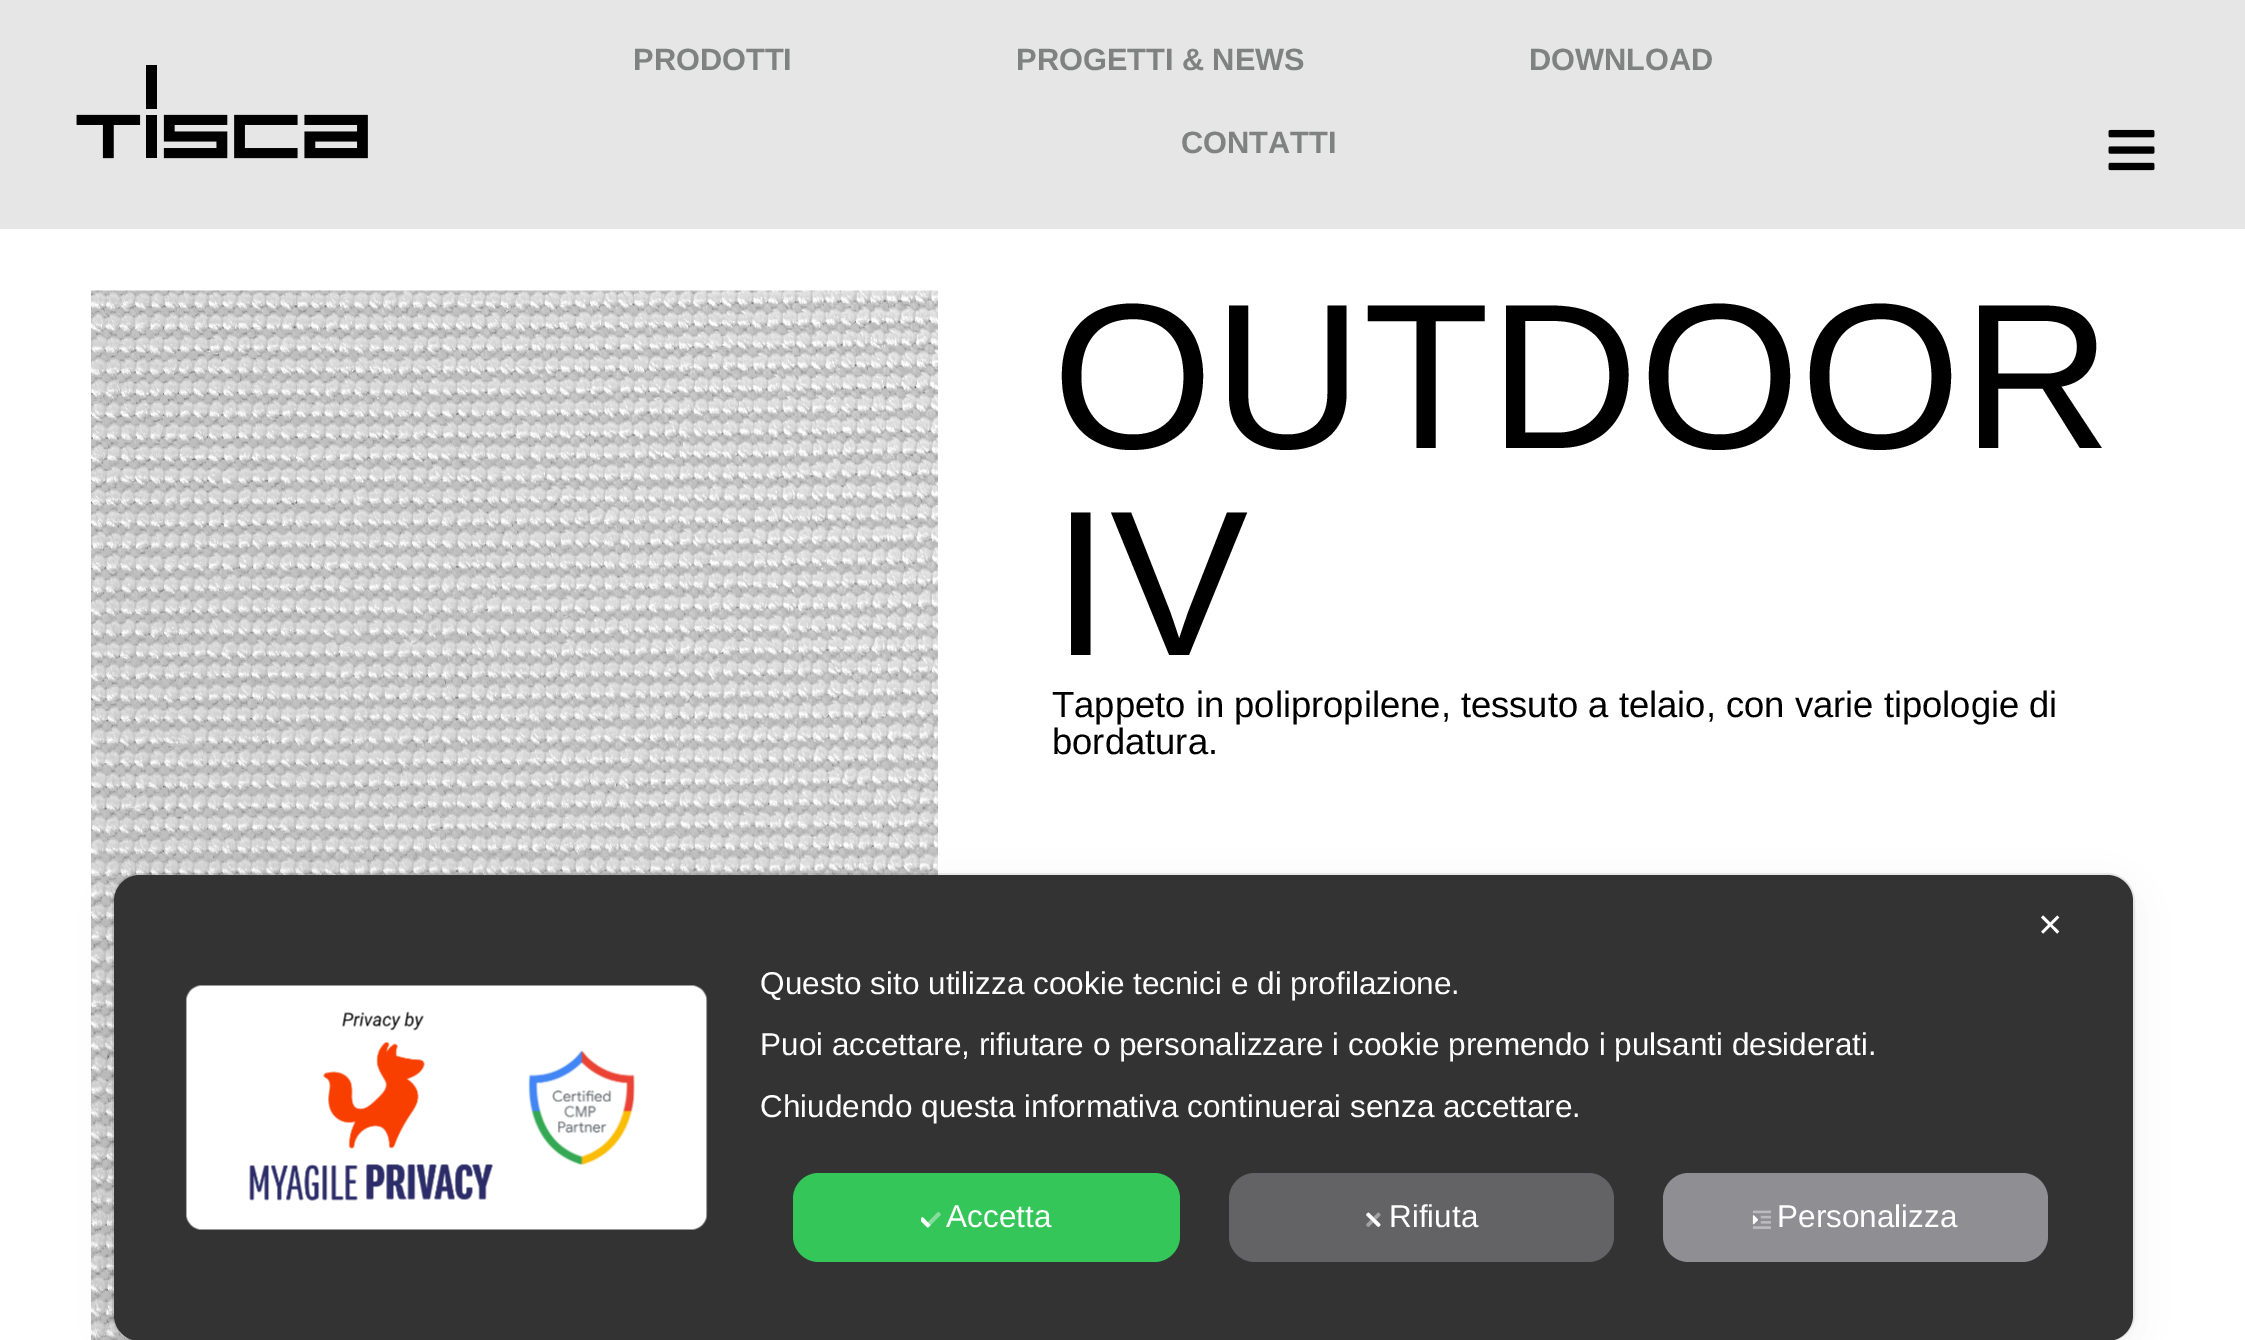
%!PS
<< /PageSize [2245 1340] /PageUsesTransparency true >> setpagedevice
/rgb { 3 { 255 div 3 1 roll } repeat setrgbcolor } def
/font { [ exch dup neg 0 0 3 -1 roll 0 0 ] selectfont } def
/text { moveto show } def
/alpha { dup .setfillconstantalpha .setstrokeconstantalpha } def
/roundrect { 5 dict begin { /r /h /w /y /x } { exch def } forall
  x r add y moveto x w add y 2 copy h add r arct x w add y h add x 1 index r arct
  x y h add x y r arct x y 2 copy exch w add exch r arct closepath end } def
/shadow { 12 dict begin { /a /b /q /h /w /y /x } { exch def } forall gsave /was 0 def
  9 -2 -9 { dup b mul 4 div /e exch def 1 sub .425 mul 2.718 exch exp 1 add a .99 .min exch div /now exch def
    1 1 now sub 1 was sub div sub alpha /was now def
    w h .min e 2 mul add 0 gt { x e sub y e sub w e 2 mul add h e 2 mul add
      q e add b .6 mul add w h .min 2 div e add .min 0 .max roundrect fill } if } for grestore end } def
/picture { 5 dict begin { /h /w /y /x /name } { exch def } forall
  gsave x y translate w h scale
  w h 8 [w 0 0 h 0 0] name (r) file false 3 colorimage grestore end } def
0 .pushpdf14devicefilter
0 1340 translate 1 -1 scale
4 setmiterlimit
255 255 255 rgb
0 0 2245 1340 rectfill
230 230 230 rgb
0 0 2245 229 rectfill
(img_01.rgb) 76 65 292 94 picture
(img_02.rgb) 2108 129 47 42 picture
(img_03.rgb) 91 290 847 1050 picture
0.08 alpha
0 0 0 rgb
2 setlinewidth
113 874 2021 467 27 roundrect stroke
1 alpha
114 886 2019 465 26 21 0.05 shadow
51 51 51 rgb
114 875 2019 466 26 roundrect fill
(img_04.rgb) 185 985 523 245 picture
52 198 89 rgb
793 1173 387 89 26 roundrect fill
(img_05.rgb) 921 1211 20 17 picture
99 99 102 rgb
1229 1173 385 89 26 roundrect fill
(img_06.rgb) 1366 1212 15 15 picture
142 142 147 rgb
1663 1173 385 89 26 roundrect fill
(img_07.rgb) 1752 1210 19 19 picture
/LiberationSans-Bold 30.75 font
128 129 129 rgb
(PRODOTTI) 633 70 text
(PROGETTI & NEWS) 1016 70 text
(DOWNLOAD) 1529 70 text
(CONTATTI) 1181 153 text
/LiberationSans-Regular 207.25 font
0 0 0 rgb
(OUTDOOR) 1052 448 text
(IV) 1052 655 text
/LiberationSans-Regular 36.4 font
(Tappeto in polipropilene, tessuto a telaio, con varie tipologie di) 1052 717 text
(bordatura.) 1052 754 text
/DejaVuSans-Regular 31.5 font
255 255 255 rgb
(✕) 2037 936 text
/LiberationSans-Regular 31.5 font
(Questo sito utilizza cookie tecnici e di profilazione.) 760 994 text
(Puoi accettare, rifiutare o personalizzare i cookie premendo i pulsanti desiderati.) 760 1055 text
(Chiudendo questa informativa continuerai senza accettare.) 760 1117 text
(Accetta) 946 1227 text
(Rifiuta) 1389 1227 text
(Personalizza) 1777 1227 text
.poppdf14devicefilter showpage
